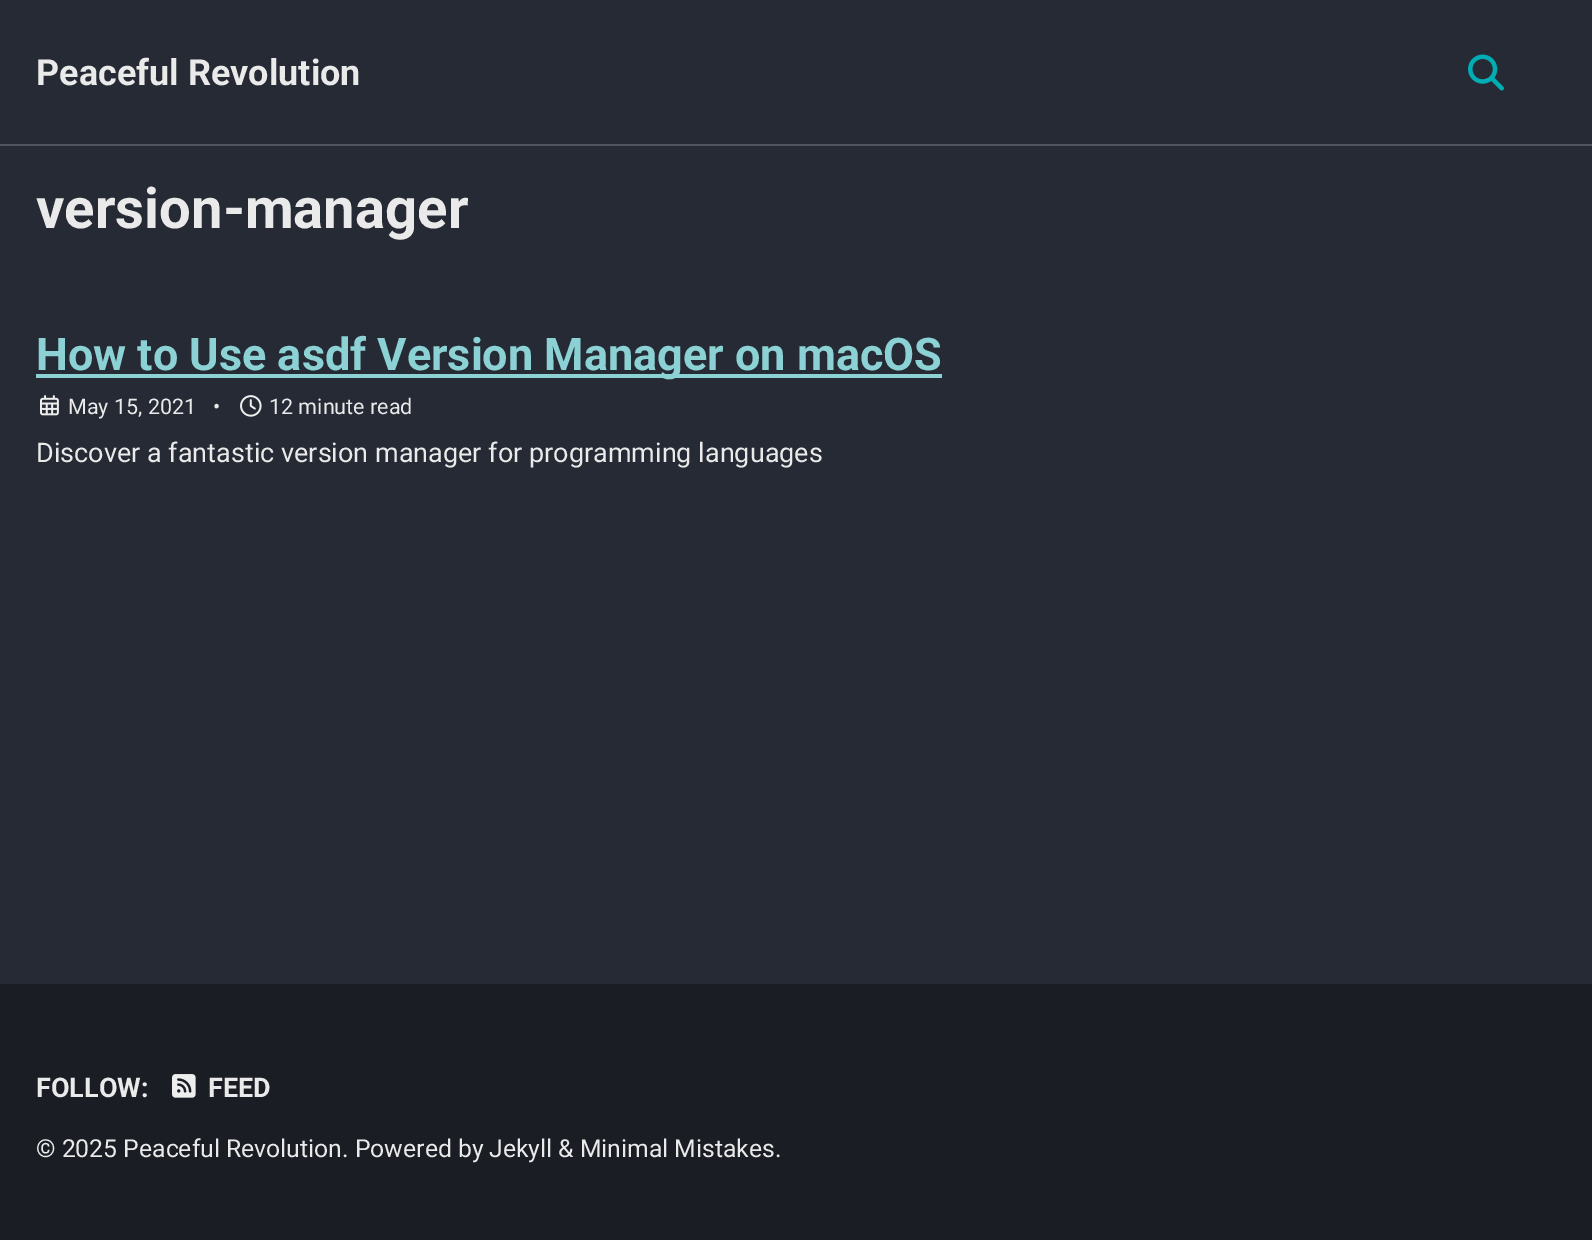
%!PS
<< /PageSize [1592 1240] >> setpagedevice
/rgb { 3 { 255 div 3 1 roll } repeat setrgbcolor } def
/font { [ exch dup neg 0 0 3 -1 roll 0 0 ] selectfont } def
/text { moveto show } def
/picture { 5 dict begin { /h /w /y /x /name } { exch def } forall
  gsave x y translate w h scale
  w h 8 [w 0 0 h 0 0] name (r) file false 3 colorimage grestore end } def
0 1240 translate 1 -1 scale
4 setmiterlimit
37 42 52 rgb
0 0 1592 1240 rectfill
81 85 93 rgb
0 144 1592 2 rectfill
(img_01.rgb) 1468 54 36 37 picture
140 210 213 rgb
36 374 906 4 rectfill
(img_02.rgb) 40 395 19 21 picture
(img_03.rgb) 240 395 22 22 picture
26 29 36 rgb
0 984 1592 256 rectfill
(img_04.rgb) 172 1074 24 24 picture
/Roboto-Bold 36 font
234 234 234 rgb
(Peaceful Revolution) 36 85 text
/Roboto-Bold 56.25 font
(version-manager) 36 228 text
/Roboto-Bold 45 font
140 210 213 rgb
(How to Use asdf Version Manager on macOS) 36 370 text
/Roboto-Regular 21.5 font
234 234 234 rgb
(May 15, 2021) 68 414 text
(•) 213 414 text
(12 minute read) 269 414 text
/Roboto-Regular 27 font
(Discover a fantastic version manager for programming languages) 36 462 text
/Roboto-Bold 27 font
(FOLLOW:) 36 1097 text
(FEED) 208 1097 text
/Roboto-Regular 24.75 font
(© 2025 Peaceful Revolution. Powered by) 36 1157 text
(Jekyll & Minimal Mistakes.) 489 1157 text
showpage
